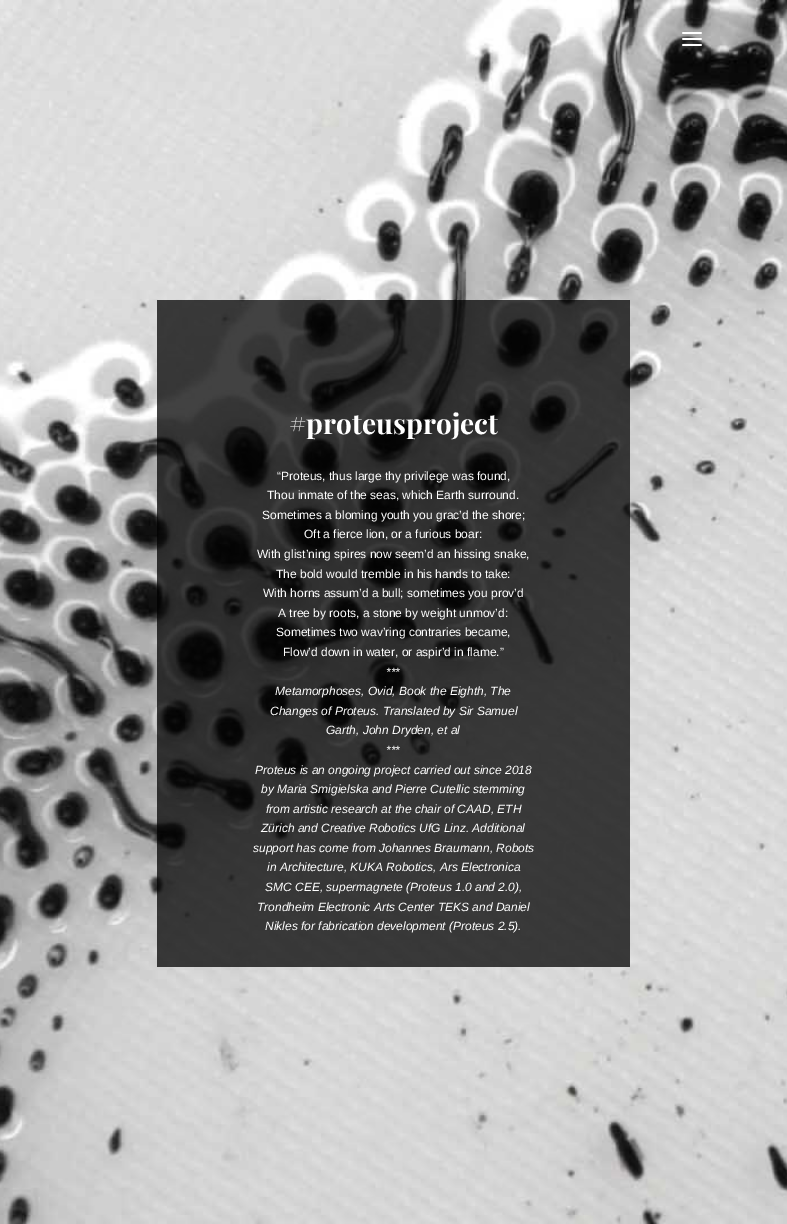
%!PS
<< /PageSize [787 1224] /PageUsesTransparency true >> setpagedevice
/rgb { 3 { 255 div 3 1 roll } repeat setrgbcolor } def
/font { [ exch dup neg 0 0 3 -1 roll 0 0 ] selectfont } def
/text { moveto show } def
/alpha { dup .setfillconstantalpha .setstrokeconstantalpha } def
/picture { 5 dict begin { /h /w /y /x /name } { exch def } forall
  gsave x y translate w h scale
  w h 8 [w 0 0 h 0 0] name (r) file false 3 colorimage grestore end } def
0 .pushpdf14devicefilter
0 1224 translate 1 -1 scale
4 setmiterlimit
255 255 255 rgb
0 0 787 1224 rectfill
(img_02.rgb) 0 0 787 1224 picture
(img_01.rgb) 682 32 20 14 picture
0.74 alpha
0 0 0 rgb
157 300 473 667 rectfill
/PlayfairDisplay-Bold 28 font
1 alpha
255 255 255 rgb
(#proteusproject) 289 434 text
/LiberationSans-Regular 12 font
(“Proteus, thus large thy privilege was found,) 277 480 text
(Thou inmate of the seas, which Earth surround.) 267 499 text
(Sometimes a bloming youth you grac’d the shore;) 262 519 text
(Oft a fierce lion, or a furious boar:) 304 538 text
(With glist’ning spires now seem’d an hissing snake,) 257 558 text
(The bold would tremble in his hands to take:) 276 578 text
(With horns assum’d a bull; sometimes you prov’d) 263 597 text
(A tree by roots, a stone by weight unmov’d:) 278 617 text
(Sometimes two wav’ring contraries became,) 276 636 text
(Flow’d down in water, or aspir’d in flame.”) 283 656 text
/LiberationSans-Italic 12 font
(***) 386 676 text
(Metamorphoses, Ovid, Book the Eighth, The) 275 695 text
(Changes of Proteus. Translated by Sir Samuel) 270 715 text
(Garth, John Dryden, et al) 326 734 text
(***) 386 754 text
(Proteus is an ongoing project carried out since 2018) 255 774 text
(by Maria Smigielska and Pierre Cutellic stemming) 261 793 text
(from artistic research at the chair of CAAD, ETH) 266 813 text
(Zürich and Creative Robotics UfG Linz. Additional) 261 832 text
(support has come from Johannes Braumann, Robots) 253 852 text
(in Architecture, KUKA Robotics, Ars Electronica) 267 871 text
(SMC CEE, supermagnete \(Proteus 1.0 and 2.0\),) 265 891 text
(Trondheim Electronic Arts Center TEKS and Daniel) 257 911 text
(Nikles for fabrication development \(Proteus 2.5\).) 265 930 text
.poppdf14devicefilter showpage
